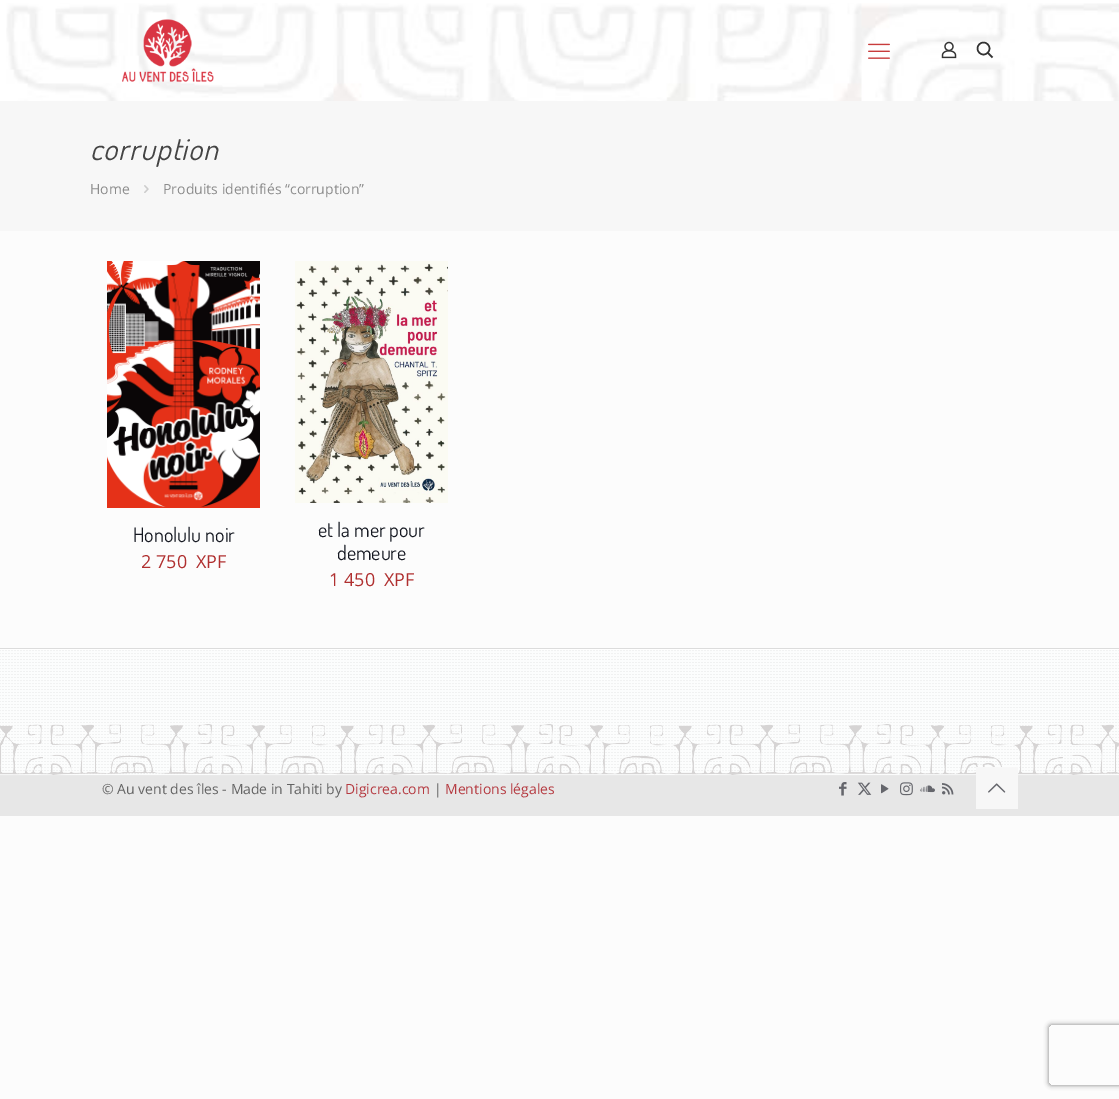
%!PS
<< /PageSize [1119 1099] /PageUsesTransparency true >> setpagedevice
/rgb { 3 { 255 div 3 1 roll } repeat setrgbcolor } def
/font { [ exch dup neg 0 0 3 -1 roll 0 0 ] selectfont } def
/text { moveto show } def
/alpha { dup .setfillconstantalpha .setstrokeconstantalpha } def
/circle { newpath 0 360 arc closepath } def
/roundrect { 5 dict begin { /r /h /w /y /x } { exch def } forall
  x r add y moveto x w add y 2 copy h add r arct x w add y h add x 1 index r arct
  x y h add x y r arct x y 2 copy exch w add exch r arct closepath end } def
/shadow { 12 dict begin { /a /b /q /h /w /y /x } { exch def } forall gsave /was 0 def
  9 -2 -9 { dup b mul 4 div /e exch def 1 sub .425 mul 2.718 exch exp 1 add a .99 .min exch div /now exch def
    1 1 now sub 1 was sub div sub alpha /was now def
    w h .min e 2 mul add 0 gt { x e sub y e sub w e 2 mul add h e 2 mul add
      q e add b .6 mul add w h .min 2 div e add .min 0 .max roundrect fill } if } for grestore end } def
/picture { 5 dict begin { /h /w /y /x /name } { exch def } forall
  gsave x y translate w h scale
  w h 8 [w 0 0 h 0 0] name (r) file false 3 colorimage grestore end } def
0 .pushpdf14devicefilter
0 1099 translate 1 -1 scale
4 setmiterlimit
252 252 252 rgb
0 0 1119 1099 rectfill
255 255 255 rgb
0 0 1119 101 rectfill
(img_01.rgb) 6 3 1113 98 picture
(img_02.rgb) 122 19 92 63 picture
(img_03.rgb) 868 43 22 16 picture
(img_04.rgb) 941 41 16 18 picture
51 51 51 rgb
1.5 setlinewidth
983.5 48.5 6 circle stroke
987.5 52.5 moveto 5 5 rlineto stroke
247 247 247 rgb
0 101 1119 130 rectfill
(img_05.rgb) 144 185 5 8 picture
(img_06.rgb) 107 261 153 247 picture
(img_07.rgb) 295 261 153 242 picture
255 255 255 rgb
0 649 1119 1 rectfill
(img_08.rgb) 0 650 1119 125 picture
220 220 220 rgb
0 648 1119 1 rectfill
(img_09.rgb) 0 724 1119 51 picture
231 231 231 rgb
0 776 1119 40 rectfill
233 233 233 rgb
0 775 1119 1 rectfill
(img_10.rgb) 839 782 8 14 picture
(img_11.rgb) 857 782 15 13 picture
(img_12.rgb) 881 784 8 10 picture
(img_13.rgb) 900 782 13 14 picture
(img_14.rgb) 920 785 15 8 picture
(img_15.rgb) 942 783 12 12 picture
247 247 247 rgb
976 767 42 42 rectfill
(img_16.rgb) 988 783 18 10 picture
gsave
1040 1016 moveto 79 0 rlineto 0 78 rlineto -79 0 rlineto closepath 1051 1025 moveto 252 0 rlineto 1 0 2 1 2 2 rcurveto 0 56 rlineto 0 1 -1 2 -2 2 rcurveto -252 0 rlineto -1 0 -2 -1 -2 -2 rcurveto 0 -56 rlineto 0 -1 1 -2 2 -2 rcurveto closepath eoclip newpath
128 128 128 rgb
1049 1025 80 60 2 2.5 1 shadow
grestore
/Dosis-Italic 30 font
68 68 68 rgb
90 160 moveto 1 0 (corruption) ashow
/OpenSans-Regular 14 font
140 140 140 rgb
(Home) 90 194 text
(Produits identifiés “corruption”) 163 194 text
/Dosis-Regular 20 font
22 25 34 rgb
(Honolulu noir) 133 542 text
/OpenSans-Regular 18 font
176 48 48 rgb
(2 750) 141 568 text
(XPF) 196 568 text
/Dosis-Regular 20 font
22 25 34 rgb
(et la mer pour) 318 537 text
(demeure) 337 560 text
/OpenSans-Regular 18 font
176 48 48 rgb
(1 450) 329 586 text
(XPF) 384 586 text
/OpenSans-Regular 14 font
99 99 99 rgb
(© Au vent des îles - Made in Tahiti by) 102 794 text
181 58 65 rgb
(Digicrea.com) 345 794 text
99 99 99 rgb
(|) 434 794 text
181 58 65 rgb
(Mentions légales) 445 794 text
.poppdf14devicefilter showpage
